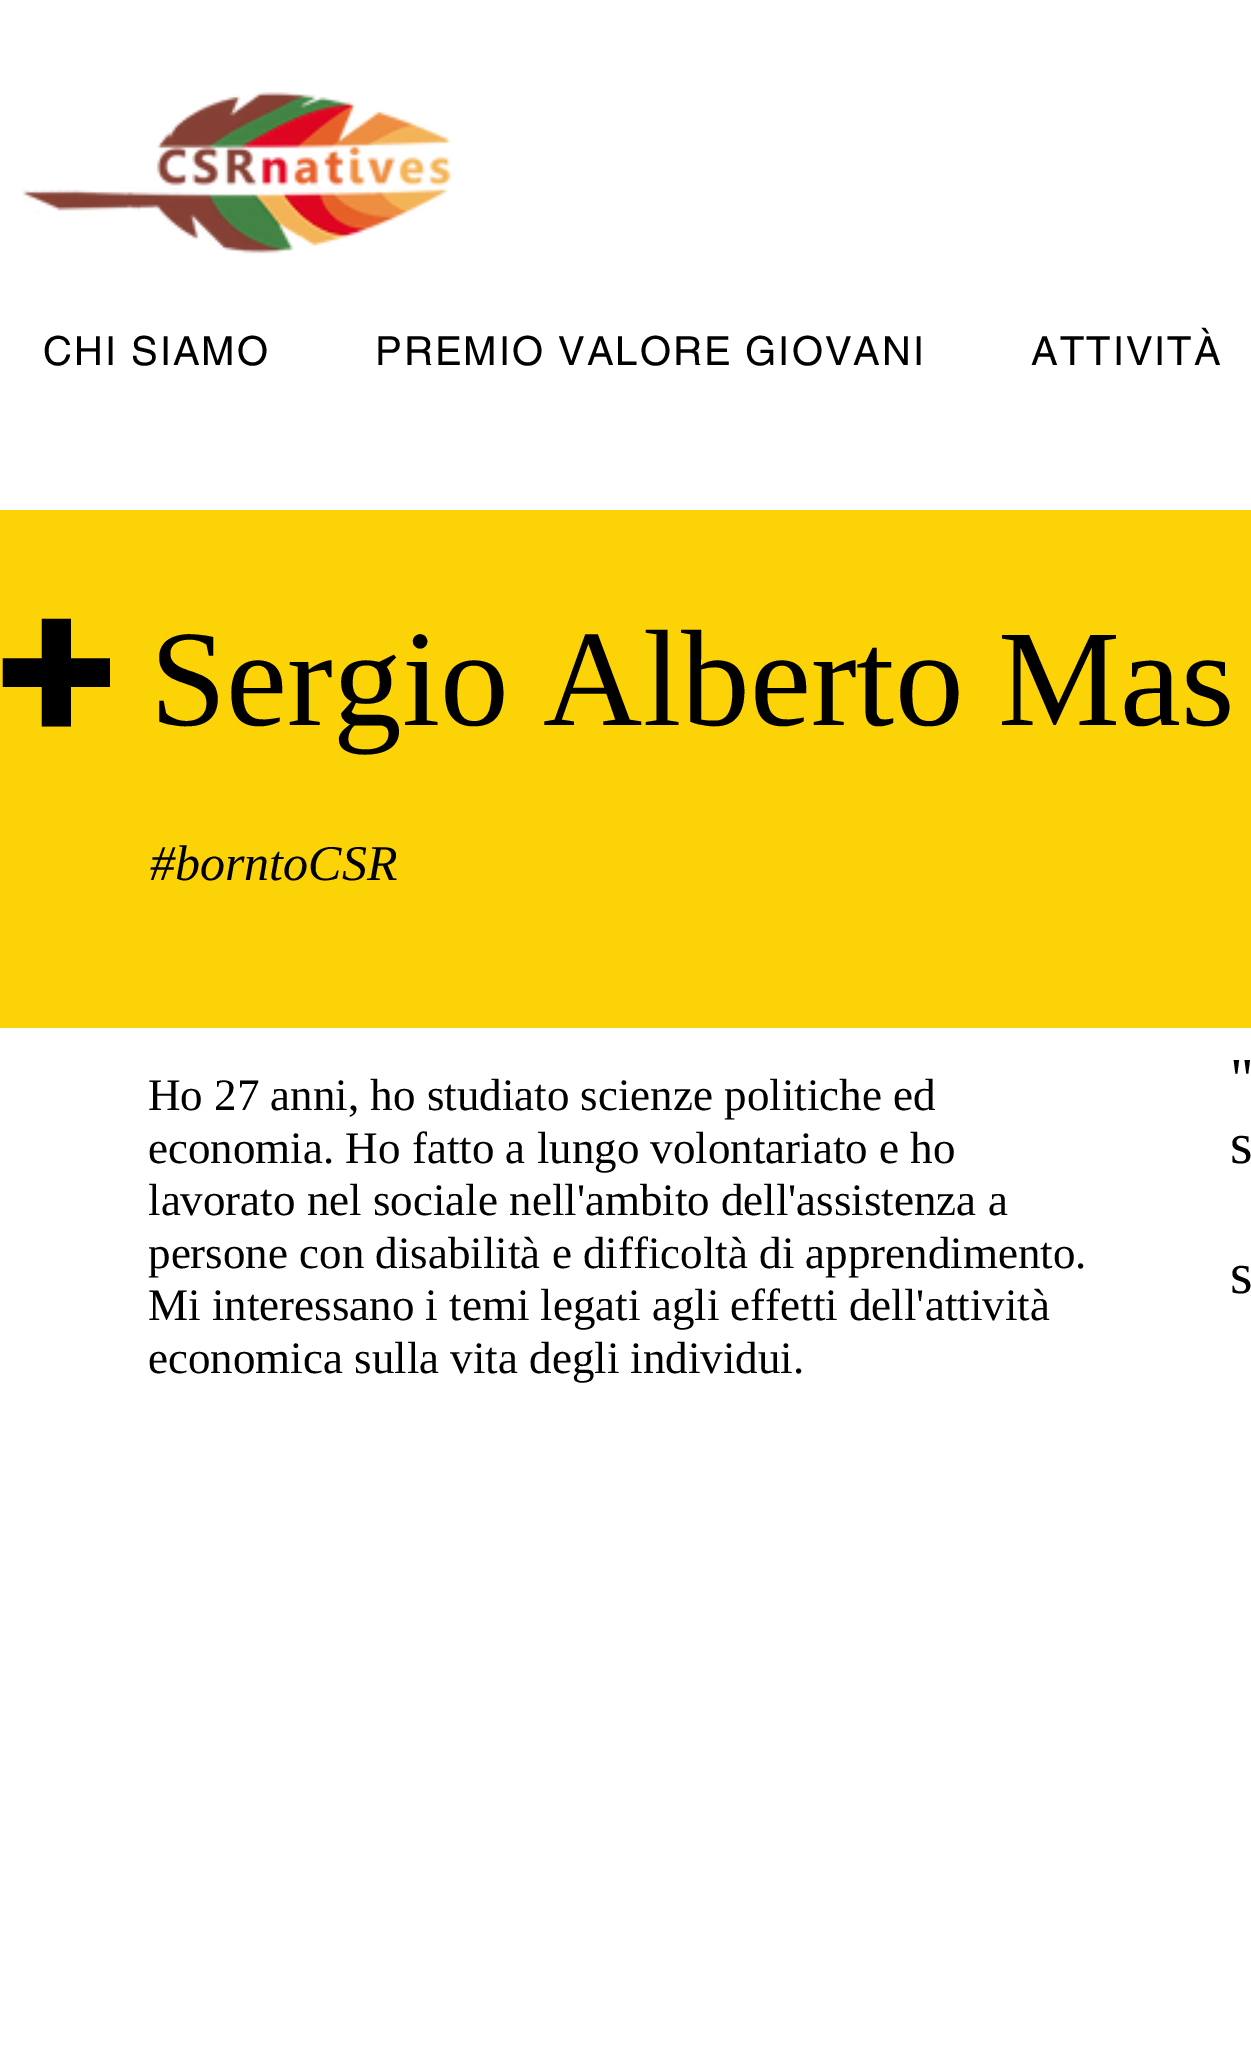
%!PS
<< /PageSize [1251 2069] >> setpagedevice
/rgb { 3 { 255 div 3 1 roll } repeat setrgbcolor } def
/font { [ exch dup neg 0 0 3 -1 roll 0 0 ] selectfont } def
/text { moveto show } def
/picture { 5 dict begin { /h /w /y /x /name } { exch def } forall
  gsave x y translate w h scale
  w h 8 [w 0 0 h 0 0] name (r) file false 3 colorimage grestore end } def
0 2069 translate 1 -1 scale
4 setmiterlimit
255 255 255 rgb
0 0 1251 2069 rectfill
(img_01.rgb) 22 92 429 162 picture
252 211 7 rgb
0 510 1251 518 rectfill
0 0 0 rgb
22.5 setlinewidth
98.5 669.5 moveto -39 0 rlineto 0 -39.5 rlineto -6.5 0 rlineto 0 39.5 rlineto -39 0 rlineto 0 6 rlineto 39 0 rlineto 0 39.5 rlineto 6.5 0 rlineto 0 -39.5 rlineto 39 0 rlineto closepath stroke
/helvetica-Regular 40 font
43 365 moveto 2 0 (CHI SIAMO) ashow
375 365 moveto 2 0 (PREMIO VALORE GIOVANI) ashow
1031 365 moveto 2 0 (ATTIVITÀ) ashow
/LiberationSerif-Regular 137.5 font
(Sergio Alberto Mas) 150 725 text
/LiberationSerif-Italic 50 font
(#borntoCSR) 150 880 text
/LiberationSerif-Regular 45 font
(Ho 27 anni, ho studiato scienze politiche ed) 148 1110 text
(economia. Ho fatto a lungo volontariato e ho) 148 1163 text
(lavorato nel sociale nell'ambito dell'assistenza a) 148 1215 text
(persone con disabilità e difficoltà di apprendimento.) 148 1268 text
(Mi interessano i temi legati agli effetti dell'attività) 148 1320 text
(economica sulla vita degli individui.) 148 1373 text
/LiberationSerif-Regular 58 font
(") 1230 1098 text
(s) 1230 1163 text
(s) 1230 1293 text
showpage
